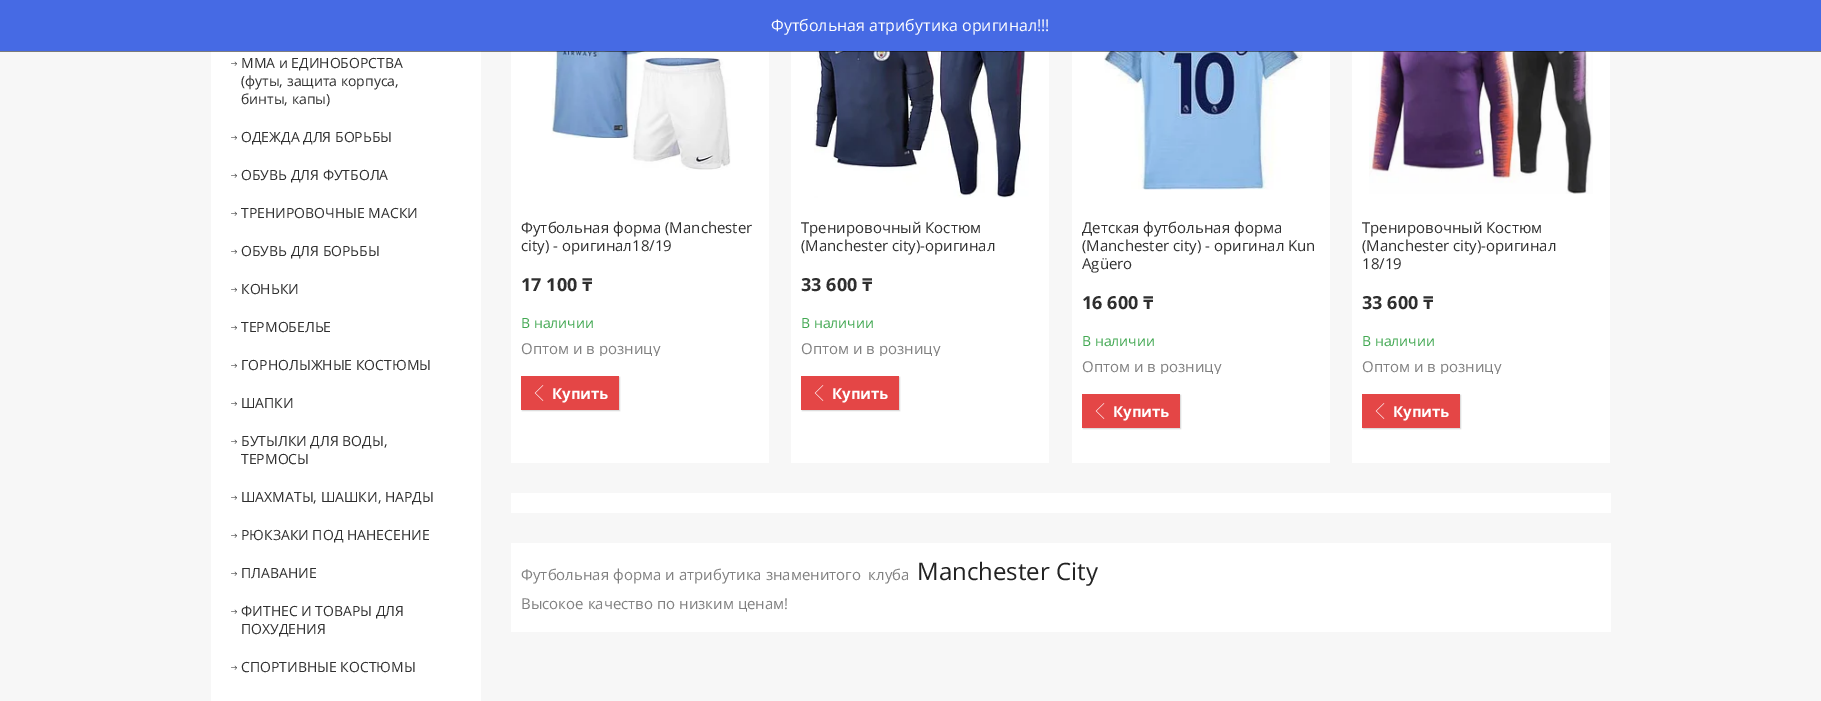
%!PS
<< /PageSize [1821 701] /PageUsesTransparency true >> setpagedevice
/rgb { 3 { 255 div 3 1 roll } repeat setrgbcolor } def
/font { [ exch dup neg 0 0 3 -1 roll 0 0 ] selectfont } def
/text { moveto show } def
/alpha { dup .setfillconstantalpha .setstrokeconstantalpha } def
/roundrect { 5 dict begin { /r /h /w /y /x } { exch def } forall
  x r add y moveto x w add y 2 copy h add r arct x w add y h add x 1 index r arct
  x y h add x y r arct x y 2 copy exch w add exch r arct closepath end } def
/shadow { 12 dict begin { /a /b /q /h /w /y /x } { exch def } forall gsave /was 0 def
  9 -2 -9 { dup b mul 4 div /e exch def 1 sub .425 mul 2.718 exch exp 1 add a .99 .min exch div /now exch def
    1 1 now sub 1 was sub div sub alpha /was now def
    w h .min e 2 mul add 0 gt { x e sub y e sub w e 2 mul add h e 2 mul add
      q e add b .6 mul add w h .min 2 div e add .min 0 .max roundrect fill } if } for grestore end } def
/picture { 5 dict begin { /h /w /y /x /name } { exch def } forall
  gsave x y translate w h scale
  w h 8 [w 0 0 h 0 0] name (r) file false 3 colorimage grestore end } def
0 .pushpdf14devicefilter
0 701 translate 1 -1 scale
4 setmiterlimit
247 247 247 rgb
0 0 1821 701 rectfill
255 255 255 rgb
211 51 270 650 rectfill
511 51 258 412 rectfill
(img_02.rgb) 537 51 194 119 picture
791 51 258 412 rectfill
(img_04.rgb) 814 51 215 147 picture
1072 51 258 412 rectfill
(img_05.rgb) 1104 51 199 139 picture
1352 51 258 412 rectfill
(img_06.rgb) 1369 51 224 143 picture
0.5 alpha
0 0 0 rgb
0 51 1821 1 rectfill
1 alpha
70 106 228 rgb
0 0 1821 51 rectfill
(img_01.rgb) 231 61 6 5 picture
(img_01.rgb) 231 135 6 5 picture
(img_01.rgb) 231 173 6 5 picture
(img_01.rgb) 231 211 6 5 picture
(img_01.rgb) 231 249 6 5 picture
(img_01.rgb) 231 287 6 5 picture
(img_01.rgb) 231 325 6 5 picture
(img_01.rgb) 231 363 6 5 picture
(img_01.rgb) 231 401 6 5 picture
(img_01.rgb) 231 439 6 5 picture
(img_01.rgb) 231 495 6 5 picture
(img_01.rgb) 231 533 6 5 picture
(img_01.rgb) 231 571 6 5 picture
(img_01.rgb) 231 609 6 5 picture
(img_01.rgb) 231 665 6 5 picture
0 0 0 rgb
522 377 98 34 0 0.5 0.15 shadow
228 70 70 rgb
521 376 98 34 rectfill
(img_03.rgb) 534 385 10 16 picture
0 0 0 rgb
802 377 98 34 0 0.5 0.15 shadow
228 70 70 rgb
801 376 98 34 rectfill
(img_03.rgb) 814 385 10 16 picture
0 0 0 rgb
1083 395 98 34 0 0.5 0.15 shadow
228 70 70 rgb
1082 394 98 34 rectfill
(img_03.rgb) 1095 403 10 16 picture
0 0 0 rgb
1363 395 98 34 0 0.5 0.15 shadow
228 70 70 rgb
1362 394 98 34 rectfill
(img_03.rgb) 1375 403 10 16 picture
255 255 255 rgb
511 493 1100 20 rectfill
511 543 1100 89 rectfill
/OpenSans-Regular 16 font
(Футбольная атрибутика оригинал!!!) 771 31 text
/OpenSans-Regular 14 font
47 47 47 rgb
(ММА и ЕДИНОБОРСТВА) 241 68 text
(\(футы, защита корпуса,) 241 86 text
(бинты, капы\)) 241 104 text
(ОДЕЖДА ДЛЯ БОРЬБЫ) 241 142 text
(ОБУВЬ ДЛЯ ФУТБОЛА) 241 180 text
(ТРЕНИРОВОЧНЫЕ МАСКИ) 241 218 text
(ОБУВЬ ДЛЯ БОРЬБЫ) 241 256 text
(КОНЬКИ) 241 294 text
(ТЕРМОБЕЛЬЕ) 241 332 text
(ГОРНОЛЫЖНЫЕ КОСТЮМЫ) 241 370 text
(ШАПКИ) 241 408 text
(БУТЫЛКИ ДЛЯ ВОДЫ,) 241 446 text
(ТЕРМОСЫ) 241 464 text
(ШАХМАТЫ, ШАШКИ, НАРДЫ) 241 502 text
(РЮКЗАКИ ПОД НАНЕСЕНИЕ) 241 540 text
(ПЛАВАНИЕ) 241 578 text
(ФИТНЕС И ТОВАРЫ ДЛЯ) 241 616 text
(ПОХУДЕНИЯ) 241 634 text
(СПОРТИВНЫЕ КОСТЮМЫ) 241 672 text
/OpenSans-Regular 15 font
(Футбольная форма \(Manchester) 521 233 text
(city\) - оригинал18/19) 521 251 text
/NotoSans-Bold 18 font
(17 100 ₸) 521 291 text
/OpenSans-Regular 14 font
66 168 82 rgb
(В наличии) 521 328 text
gsave
521 315 238 41 rectclip
/OpenSans-Regular 15 font
128 128 128 rgb
(Оптом и в розницу) 521 354 text
grestore
/OpenSans-Bold 15 font
255 255 255 rgb
(Купить) 552 399 text
/OpenSans-Regular 15 font
47 47 47 rgb
(Тренировочный Костюм) 801 233 text
(\(Manchester city\)-оригинал) 801 251 text
/NotoSans-Bold 18 font
(33 600 ₸) 801 291 text
/OpenSans-Regular 14 font
66 168 82 rgb
(В наличии) 801 328 text
gsave
801 315 238 41 rectclip
/OpenSans-Regular 15 font
128 128 128 rgb
(Оптом и в розницу) 801 354 text
grestore
/OpenSans-Bold 15 font
255 255 255 rgb
(Купить) 832 399 text
/OpenSans-Regular 15 font
47 47 47 rgb
(Детская футбольная форма) 1082 233 text
(\(Manchester city\) - оригинал Kun) 1082 251 text
(Agüero) 1082 269 text
/NotoSans-Bold 18 font
(16 600 ₸) 1082 309 text
/OpenSans-Regular 14 font
66 168 82 rgb
(В наличии) 1082 346 text
gsave
1082 333 238 41 rectclip
/OpenSans-Regular 15 font
128 128 128 rgb
(Оптом и в розницу) 1082 372 text
grestore
/OpenSans-Bold 15 font
255 255 255 rgb
(Купить) 1113 417 text
/OpenSans-Regular 15 font
47 47 47 rgb
(Тренировочный Костюм) 1362 233 text
(\(Manchester city\)-оригинал) 1362 251 text
(18/19) 1362 269 text
/NotoSans-Bold 18 font
(33 600 ₸) 1362 309 text
/OpenSans-Regular 14 font
66 168 82 rgb
(В наличии) 1362 346 text
gsave
1362 333 238 41 rectclip
/OpenSans-Regular 15 font
128 128 128 rgb
(Оптом и в розницу) 1362 372 text
grestore
/OpenSans-Bold 15 font
255 255 255 rgb
(Купить) 1393 417 text
/OpenSans-Regular 15 font
128 128 128 rgb
(Футбольная форма и атрибутика знаменитого  клуба) 521 580 text
/OpenSans-Regular 24 font
34 34 34 rgb
(Manchester City) 917 580 text
/OpenSans-Regular 15 font
128 128 128 rgb
(Высокое качество по низким ценам!) 521 609 text
.poppdf14devicefilter showpage
